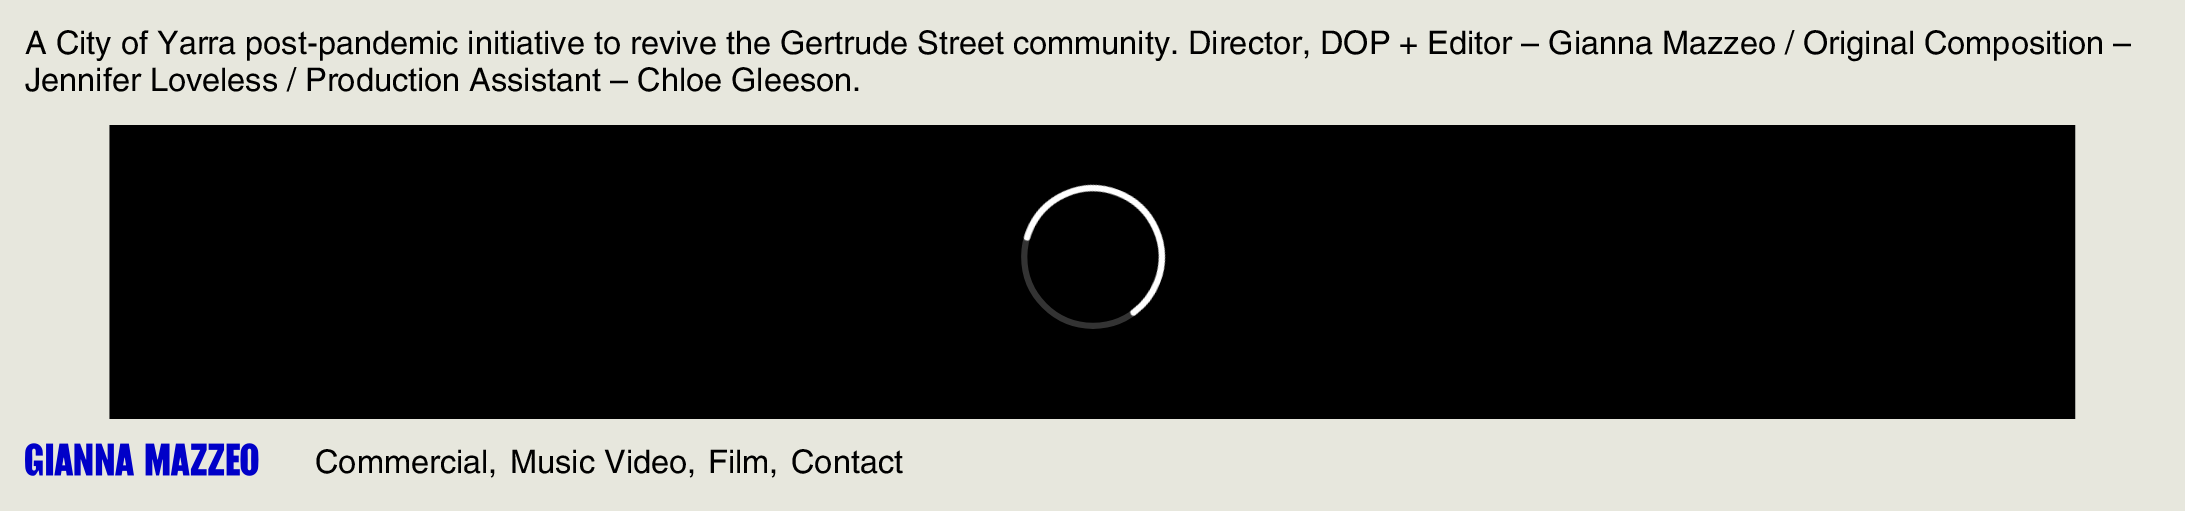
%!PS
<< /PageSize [2185 511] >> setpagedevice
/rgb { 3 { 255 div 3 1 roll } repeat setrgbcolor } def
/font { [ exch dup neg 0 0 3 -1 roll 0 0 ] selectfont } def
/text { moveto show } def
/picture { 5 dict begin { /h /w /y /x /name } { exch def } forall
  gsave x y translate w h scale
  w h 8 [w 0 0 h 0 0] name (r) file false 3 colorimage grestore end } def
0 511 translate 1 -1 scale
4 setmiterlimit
231 231 221 rgb
0 0 2185 511 rectfill
(img_01.rgb) 109 125 1967 294 picture
(img_02.rgb) 25 443 234 33 picture
/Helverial-Regular 32.5 font
0 0 0 rgb
(A City of Yarra post-pandemic initiative to revive the Gertrude Street community. Director, DOP + Editor – Gianna Mazzeo / Original Composition –) 25 54 text
(Jennifer Loveless / Production Assistant – Chloe Gleeson.) 25 91 text
(Commercial,) 315 473 text
(Music Video,) 510 473 text
(Film,) 708 473 text
(Contact) 791 473 text
showpage
